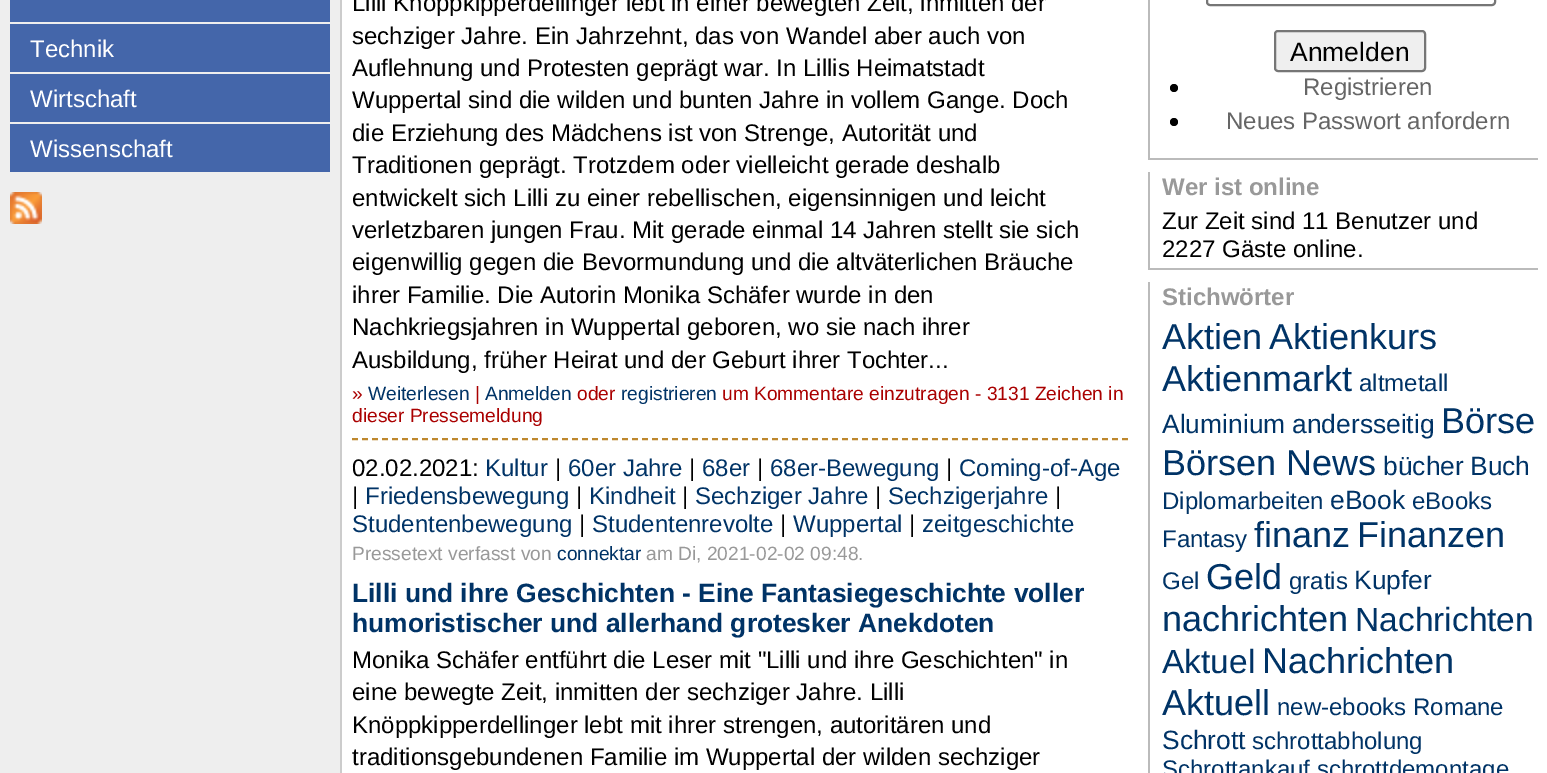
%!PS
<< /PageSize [1547 773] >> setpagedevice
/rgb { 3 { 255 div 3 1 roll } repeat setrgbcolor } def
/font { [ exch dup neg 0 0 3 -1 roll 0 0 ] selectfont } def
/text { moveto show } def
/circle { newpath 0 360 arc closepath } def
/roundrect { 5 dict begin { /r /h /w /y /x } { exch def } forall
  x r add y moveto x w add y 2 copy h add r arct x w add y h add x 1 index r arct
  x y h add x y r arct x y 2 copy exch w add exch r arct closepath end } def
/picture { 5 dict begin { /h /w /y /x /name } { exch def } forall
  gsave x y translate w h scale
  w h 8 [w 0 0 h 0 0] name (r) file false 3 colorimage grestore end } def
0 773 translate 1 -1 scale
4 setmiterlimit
255 255 255 rgb
0 0 1547 773 rectfill
238 238 238 rgb
0 0 340 773 rectfill
204 204 204 rgb
340 0 2 773 rectfill
68 102 170 rgb
10 0 320 22 rectfill
10 24 320 48 rectfill
10 74 320 48 rectfill
10 124 320 48 rectfill
(img_01.rgb) 10 192 32 32 picture
190 136 46 rgb
2 setlinewidth
[6 4] 0 setdash
352 439 moveto 776 0 rlineto stroke
187 187 187 rgb
1148 158 390 2 rectfill
1148 0 2 160 rectfill
118 118 118 rgb
[] 0 setdash
1207 -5 288 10 3 roundrect stroke
239 239 239 rgb
1275 31 150 40 3 roundrect gsave fill grestore
118 118 118 rgb
stroke
0 0 0 rgb
1174 88 4 circle fill
1174 122 4 circle fill
187 187 187 rgb
1148 268 390 2 rectfill
1148 172 2 98 rectfill
1148 282 2 491 rectfill
/LiberationSans-Regular 24 font
255 255 255 rgb
(Technik) 30 57 text
(Wirtschaft) 30 107 text
(Wissenschaft) 30 157 text
0 0 0 rgb
(Lilli Knöppkipperdellinger lebt in einer bewegten Zeit, inmitten der) 352 11 text
(sechziger Jahre. Ein Jahrzehnt, das von Wandel aber auch von) 352 44 text
(Auflehnung und Protesten geprägt war. In Lillis Heimatstadt) 352 76 text
(Wuppertal sind die wilden und bunten Jahre in vollem Gange. Doch) 352 108 text
(die Erziehung des Mädchens ist von Strenge, Autorität und) 352 141 text
(Traditionen geprägt. Trotzdem oder vielleicht gerade deshalb) 352 173 text
(entwickelt sich Lilli zu einer rebellischen, eigensinnigen und leicht) 352 206 text
(verletzbaren jungen Frau. Mit gerade einmal 14 Jahren stellt sie sich) 352 238 text
(eigenwillig gegen die Bevormundung und die altväterlichen Bräuche) 352 270 text
(ihrer Familie. Die Autorin Monika Schäfer wurde in den) 352 303 text
(Nachkriegsjahren in Wuppertal geboren, wo sie nach ihrer) 352 335 text
(Ausbildung, früher Heirat und der Geburt ihrer Tochter...) 352 368 text
/LiberationSans-Regular 19.2 font
170 0 0 rgb
(») 352 400 text
0 51 102 rgb
(Weiterlesen) 368 400 text
170 0 0 rgb
(|) 475 400 text
0 51 102 rgb
(Anmelden) 485 400 text
170 0 0 rgb
(oder) 577 400 text
0 51 102 rgb
(registrieren) 621 400 text
170 0 0 rgb
(um Kommentare einzutragen - 3131 Zeichen in) 722 400 text
(dieser Pressemeldung) 352 422 text
/LiberationSans-Regular 24 font
0 0 0 rgb
(02.02.2021:) 352 476 text
0 51 102 rgb
(Kultur) 485 476 text
0 0 0 rgb
(|) 555 476 text
0 51 102 rgb
(60er Jahre) 568 476 text
0 0 0 rgb
(|) 689 476 text
0 51 102 rgb
(68er) 702 476 text
0 0 0 rgb
(|) 757 476 text
0 51 102 rgb
(68er-Bewegung) 770 476 text
0 0 0 rgb
(|) 946 476 text
0 51 102 rgb
(Coming-of-Age) 959 476 text
0 0 0 rgb
(|) 352 504 text
0 51 102 rgb
(Friedensbewegung) 365 504 text
0 0 0 rgb
(|) 576 504 text
0 51 102 rgb
(Kindheit) 589 504 text
0 0 0 rgb
(|) 682 504 text
0 51 102 rgb
(Sechziger Jahre) 695 504 text
0 0 0 rgb
(|) 875 504 text
0 51 102 rgb
(Sechzigerjahre) 888 504 text
0 0 0 rgb
(|) 1055 504 text
0 51 102 rgb
(Studentenbewegung) 352 532 text
0 0 0 rgb
(|) 579 532 text
0 51 102 rgb
(Studentenrevolte) 592 532 text
0 0 0 rgb
(|) 780 532 text
0 51 102 rgb
(Wuppertal) 793 532 text
0 0 0 rgb
(|) 909 532 text
0 51 102 rgb
(zeitgeschichte) 922 532 text
/LiberationSans-Regular 19.2 font
153 153 153 rgb
(Pressetext verfasst von) 352 560 text
0 51 102 rgb
(connektar) 557 560 text
153 153 153 rgb
(am Di, 2021-02-02 09:48.) 646 560 text
/LiberationSans-Bold 26.4 font
0 51 102 rgb
(Lilli und ihre Geschichten - Eine Fantasiegeschichte voller) 352 602 text
(humoristischer und allerhand grotesker Anekdoten) 352 632 text
/LiberationSans-Regular 24 font
0 0 0 rgb
(Monika Schäfer entführt die Leser mit "Lilli und ihre Geschichten" in) 352 668 text
(eine bewegte Zeit, inmitten der sechziger Jahre. Lilli) 352 700 text
(Knöppkipperdellinger lebt mit ihrer strengen, autoritären und) 352 733 text
(traditionsgebundenen Familie im Wuppertal der wilden sechziger) 352 765 text
/LiberationSans-Regular 26.5 font
(Anmelden) 1290 61 text
/LiberationSans-Regular 24 font
102 102 102 rgb
(Registrieren) 1303 95 text
(Neues Passwort anfordern) 1226 129 text
/LiberationSans-Bold 24 font
153 153 153 rgb
(Wer ist online) 1162 195 text
/LiberationSans-Regular 24 font
0 0 0 rgb
(Zur Zeit sind 11 Benutzer und) 1162 229 text
(2227 Gäste online.) 1162 257 text
/LiberationSans-Bold 24 font
153 153 153 rgb
(Stichwörter) 1162 305 text
/LiberationSans-Regular 36 font
0 51 102 rgb
(Aktien) 1162 349 text
(Aktienkurs) 1269 349 text
(Aktienmarkt) 1162 391 text
/LiberationSans-Regular 24 font
(altmetall) 1359 391 text
/LiberationSans-Regular 26.4 font
(Aluminium) 1162 433 text
(andersseitig) 1292 433 text
/LiberationSans-Regular 36 font
(Börse) 1441 433 text
(Börsen News) 1162 475 text
/LiberationSans-Regular 26.4 font
(bücher) 1383 475 text
(Buch) 1470 475 text
/LiberationSans-Regular 24 font
(Diplomarbeiten) 1162 509 text
/LiberationSans-Regular 26.4 font
(eBook) 1330 509 text
/LiberationSans-Regular 24 font
(eBooks) 1412 509 text
(Fantasy) 1162 547 text
/LiberationSans-Regular 36 font
(finanz) 1254 547 text
(Finanzen) 1357 547 text
/LiberationSans-Regular 24 font
(Gel) 1162 589 text
/LiberationSans-Regular 36 font
(Geld) 1206 589 text
/LiberationSans-Regular 24 font
(gratis) 1289 589 text
/LiberationSans-Regular 26.4 font
(Kupfer) 1354 589 text
/LiberationSans-Regular 36 font
(nachrichten) 1162 631 text
/LiberationSans-Regular 33.5 font
(Nachrichten) 1355 631 text
(Aktuel) 1162 673 text
/LiberationSans-Regular 36 font
(Nachrichten) 1262 673 text
(Aktuell) 1162 715 text
/LiberationSans-Regular 24 font
(new-ebooks Romane) 1277 715 text
/LiberationSans-Regular 26.4 font
(Schrott) 1162 749 text
/LiberationSans-Regular 24 font
(schrottabholung) 1252 749 text
(Schrottankauf schrottdemontage) 1162 777 text
showpage
